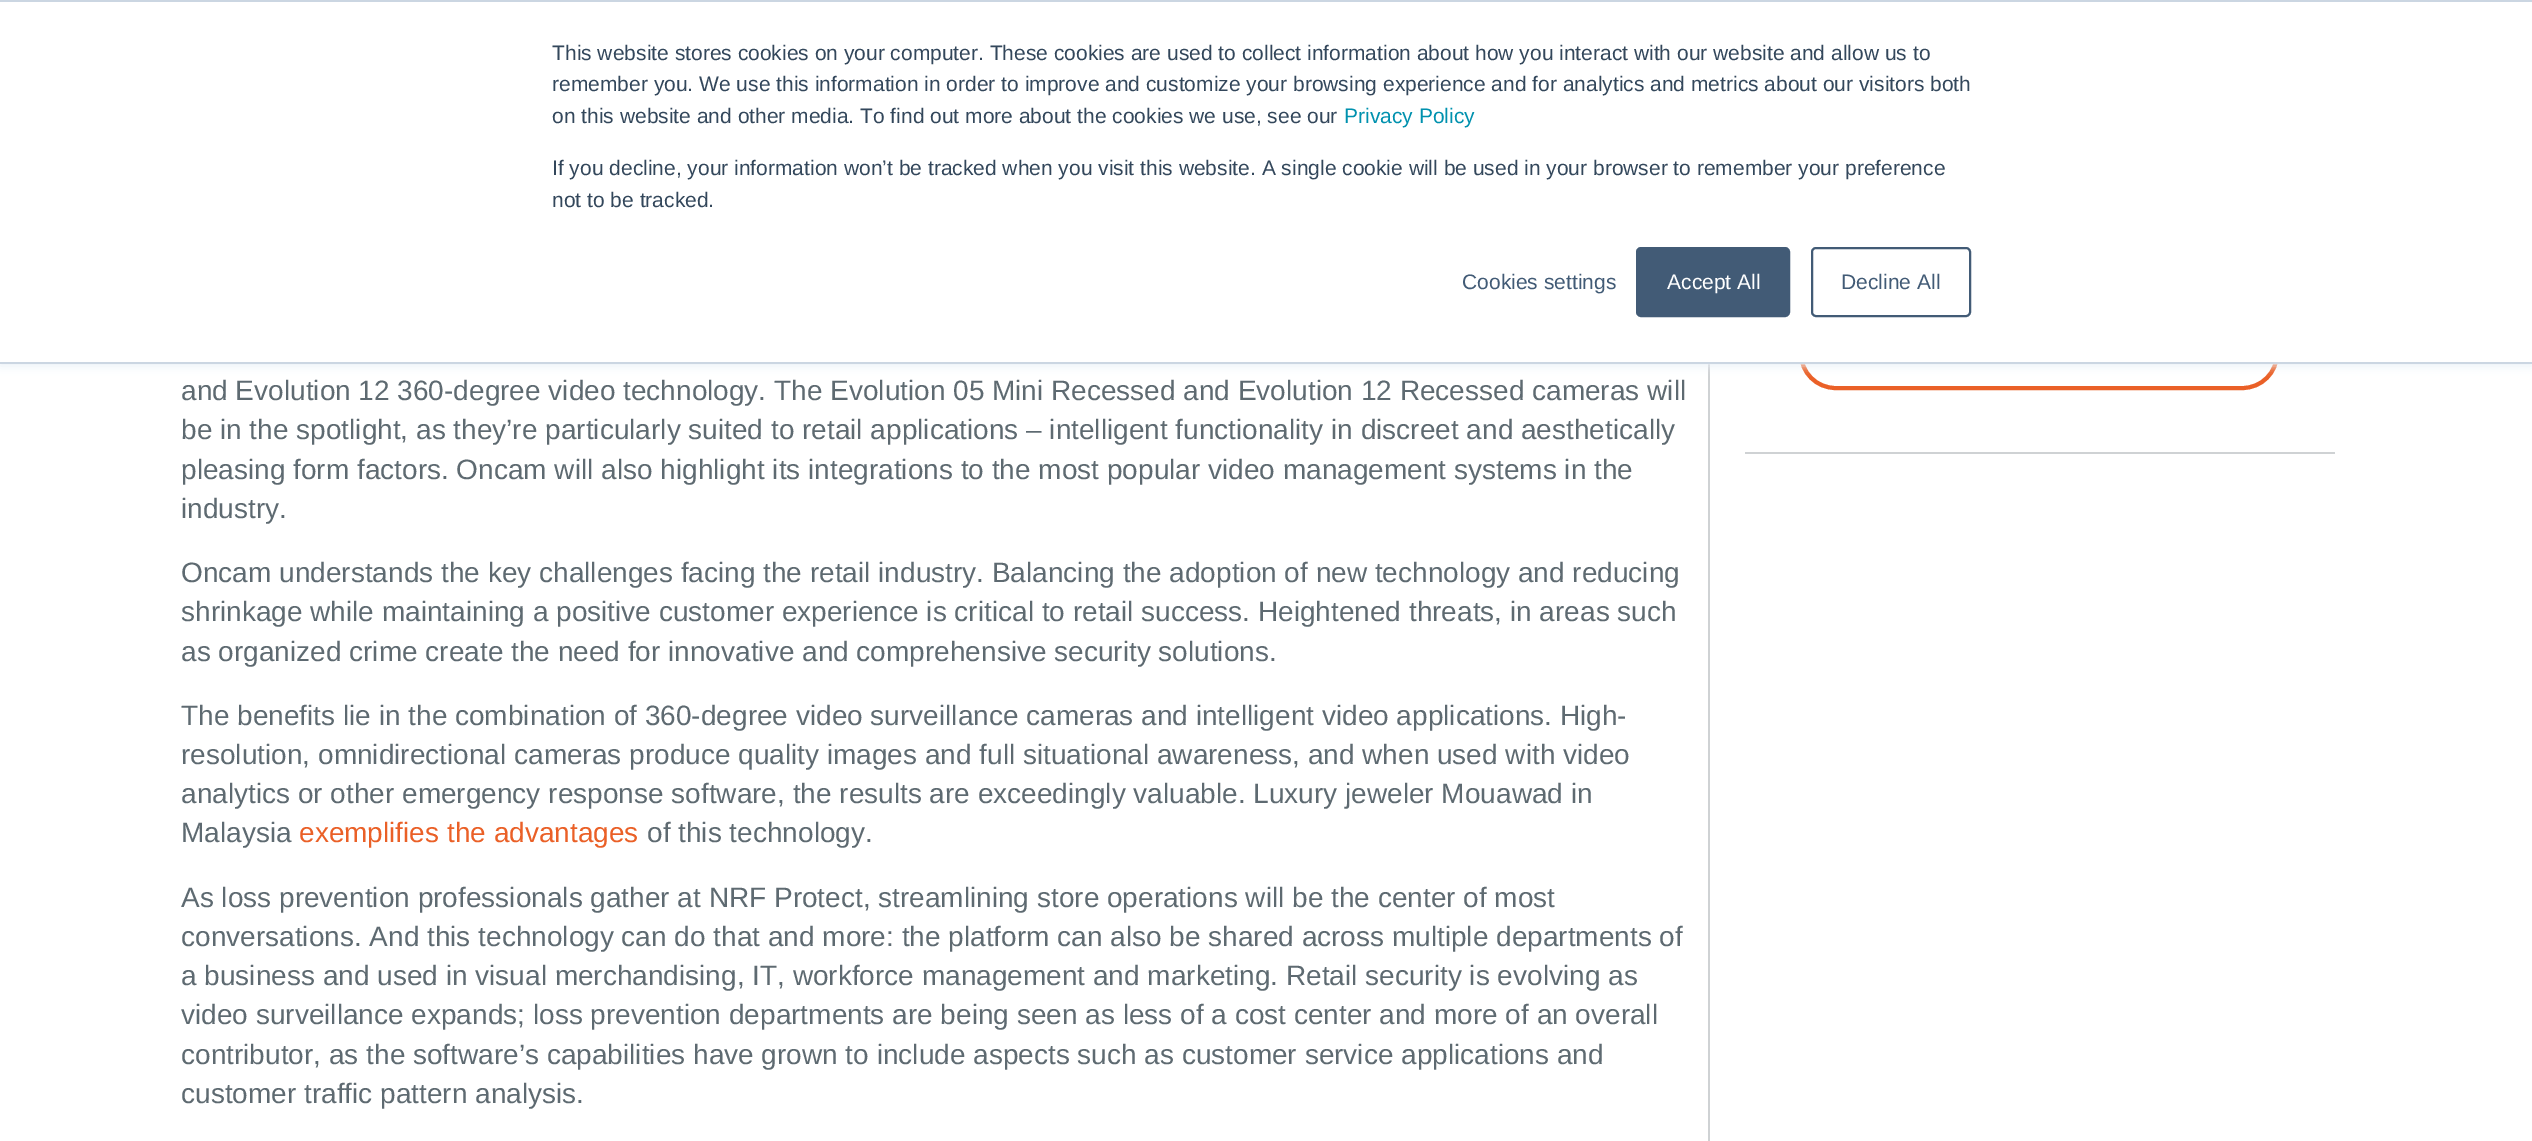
%!PS
<< /PageSize [2532 1141] /PageUsesTransparency true >> setpagedevice
/rgb { 3 { 255 div 3 1 roll } repeat setrgbcolor } def
/font { [ exch dup neg 0 0 3 -1 roll 0 0 ] selectfont } def
/text { moveto show } def
/alpha { dup .setfillconstantalpha .setstrokeconstantalpha } def
/roundrect { 5 dict begin { /r /h /w /y /x } { exch def } forall
  x r add y moveto x w add y 2 copy h add r arct x w add y h add x 1 index r arct
  x y h add x y r arct x y 2 copy exch w add exch r arct closepath end } def
/shadow { 12 dict begin { /a /b /q /h /w /y /x } { exch def } forall gsave /was 0 def
  9 -2 -9 { dup b mul 4 div /e exch def 1 sub .425 mul 2.718 exch exp 1 add a .99 .min exch div /now exch def
    1 1 now sub 1 was sub div sub alpha /was now def
    w h .min e 2 mul add 0 gt { x e sub y e sub w e 2 mul add h e 2 mul add
      q e add b .6 mul add w h .min 2 div e add .min 0 .max roundrect fill } if } for grestore end } def
0 .pushpdf14devicefilter
0 1141 translate 1 -1 scale
4 setmiterlimit
255 255 255 rgb
0 0 2532 1141 rectfill
207 210 212 rgb
1708 364 2 777 rectfill
234 96 39 rgb
4 setlinewidth
1801 319 476 69 34.5 roundrect stroke
234 240 246 rgb
0 2 2532 364 0 4.5 1 shadow
255 255 255 rgb
0 2 2532 360 rectfill
203 214 226 rgb
0 0 2532 2 rectfill
0 362 2532 2 rectfill
66 91 118 rgb
1637 248 152 68 4 roundrect gsave fill grestore
2 setlinewidth
stroke
1812 248 158 68 4 roundrect stroke
207 210 212 rgb
1745 452 590 2 rectfill
/LiberationSans-Regular 21 font
51 71 91 rgb
(This website stores cookies on your computer. These cookies are used to collect information about how you interact with our website and allow us to) 552 60 text
(remember you. We use this information in order to improve and customize your browsing experience and for analytics and metrics about our visitors both) 552 91 text
(on this website and other media. To find out more about the cookies we use, see our) 552 123 text
0 145 174 rgb
(Privacy Policy) 1344 123 text
51 71 91 rgb
(If you decline, your information won’t be tracked when you visit this website. A single cookie will be used in your browser to remember your preference) 552 175 text
(not to be tracked.) 552 207 text
66 91 118 rgb
(Cookies settings) 1462 289 text
255 255 255 rgb
(Accept All) 1667 289 text
66 91 118 rgb
(Decline All) 1841 289 text
/LiberationSans-Regular 28 font
94 106 113 rgb
(and Evolution 12 360-degree video technology. The Evolution 05 Mini Recessed and Evolution 12 Recessed cameras will) 181 400 text
(be in the spotlight, as they’re particularly suited to retail applications – intelligent functionality in discreet and aesthetically) 181 439 text
(pleasing form factors. Oncam will also highlight its integrations to the most popular video management systems in the) 181 479 text
(industry.) 181 518 text
(Oncam understands the key challenges facing the retail industry. Balancing the adoption of new technology and reducing) 181 582 text
(shrinkage while maintaining a positive customer experience is critical to retail success. Heightened threats, in areas such) 181 621 text
(as organized crime create the need for innovative and comprehensive security solutions.) 181 661 text
(The benefits lie in the combination of 360-degree video surveillance cameras and intelligent video applications. High-) 181 725 text
(resolution, omnidirectional cameras produce quality images and full situational awareness, and when used with video) 181 764 text
(analytics or other emergency response software, the results are exceedingly valuable. Luxury jeweler Mouawad in) 181 803 text
(Malaysia) 181 842 text
234 96 39 rgb
(exemplifies the advantages) 299 842 text
94 106 113 rgb
(of this technology.) 647 842 text
(As loss prevention professionals gather at NRF Protect, streamlining store operations will be the center of most) 181 907 text
(conversations. And this technology can do that and more: the platform can also be shared across multiple departments of) 181 946 text
(a business and used in visual merchandising, IT, workforce management and marketing. Retail security is evolving as) 181 985 text
(video surveillance expands; loss prevention departments are being seen as less of a cost center and more of an overall) 181 1024 text
(contributor, as the software’s capabilities have grown to include aspects such as customer service applications and) 181 1064 text
(customer traffic pattern analysis.) 181 1103 text
.poppdf14devicefilter showpage
